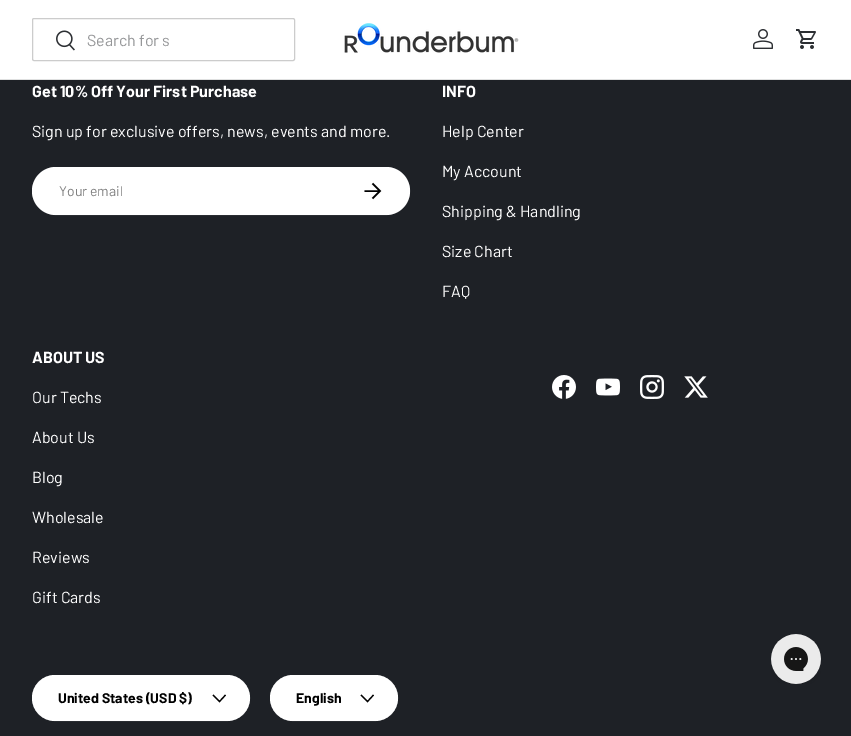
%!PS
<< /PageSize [851 736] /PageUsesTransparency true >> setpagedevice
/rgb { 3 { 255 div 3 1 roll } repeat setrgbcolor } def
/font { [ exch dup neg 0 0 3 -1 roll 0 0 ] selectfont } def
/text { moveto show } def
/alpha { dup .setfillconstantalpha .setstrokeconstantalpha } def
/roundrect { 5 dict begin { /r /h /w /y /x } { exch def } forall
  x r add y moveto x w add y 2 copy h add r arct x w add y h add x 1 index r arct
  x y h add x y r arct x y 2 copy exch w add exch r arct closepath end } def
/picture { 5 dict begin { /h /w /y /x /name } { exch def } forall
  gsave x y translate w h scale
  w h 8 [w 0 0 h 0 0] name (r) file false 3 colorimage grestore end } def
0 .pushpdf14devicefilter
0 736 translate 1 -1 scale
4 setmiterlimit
30 33 38 rgb
0 0 851 736 rectfill
255 255 255 rgb
0 0 851 79 rectfill
223 224 224 rgb
0 79 851 1 rectfill
204 204 204 rgb
32.5 18.5 262 42 1.5 roundrect stroke
(img_01.rgb) 56 30 19 21 picture
(img_02.rgb) 344 23 175 30 picture
(img_03.rgb) 753 29 20 20 picture
(img_04.rgb) 796 29 20 20 picture
255 255 255 rgb
32 167 378 48 24 roundrect fill
0.2 alpha
2 setlinewidth
33 168 376 46 23 roundrect stroke
1 alpha
0 0 0 rgb
1.5 setlinewidth
364.5 191 moveto 15 0 rlineto 372.5 183.5 moveto 7.5 7.5 rlineto -7.5 7.5 rlineto stroke
(img_05.rgb) 552 375 24 24 picture
(img_06.rgb) 596 378 24 18 picture
(img_07.rgb) 640 375 24 24 picture
(img_08.rgb) 684 376 24 22 picture
255 255 255 rgb
32 675 218 46 23 roundrect fill
0.2 alpha
2 setlinewidth
33 676 216 44 22 roundrect stroke
1 alpha
0 0 0 rgb
1.2 setlinewidth
225.5 695 moveto -6 6.5 rlineto -6.5 -6.5 rlineto stroke
255 255 255 rgb
270 675 128 46 23 roundrect fill
0.2 alpha
2 setlinewidth
271 676 126 44 22 roundrect stroke
1 alpha
0 0 0 rgb
1.2 setlinewidth
373.5 695 moveto -6 6.5 rlineto -6.5 -6.5 rlineto stroke
(img_09.rgb) 771 634 50 50 picture
/Barlow-Regular 16 font
150 151 153 rgb
(Search for s) 87 46 text
/Barlow-Bold 16 font
255 255 255 rgb
(Get 10% Off Your First Purchase) 32 97 text
/Barlow-Regular 16 font
(Sign up for exclusive offers, news, events and more.) 32 137 text
/Barlow-Regular 14 font
128 128 128 rgb
(Your email) 59 196 text
/Barlow-Bold 16 font
255 255 255 rgb
(INFO) 442 97 text
/Barlow-Regular 16 font
(Help Center) 442 137 text
(My Account) 442 177 text
(Shipping & Handling) 442 217 text
(Size Chart) 442 257 text
(FAQ) 442 297 text
/Barlow-Bold 16 font
(ABOUT US) 32 363 text
/Barlow-Regular 16 font
(Our Techs) 32 403 text
(About Us) 32 443 text
(Blog) 32 483 text
(Wholesale) 32 523 text
(Reviews) 32 563 text
(Gift Cards) 32 603 text
/Barlow-Bold 14 font
0 0 0 rgb
(United States \(USD $\)) 58 703 text
(English) 296 703 text
.poppdf14devicefilter showpage
